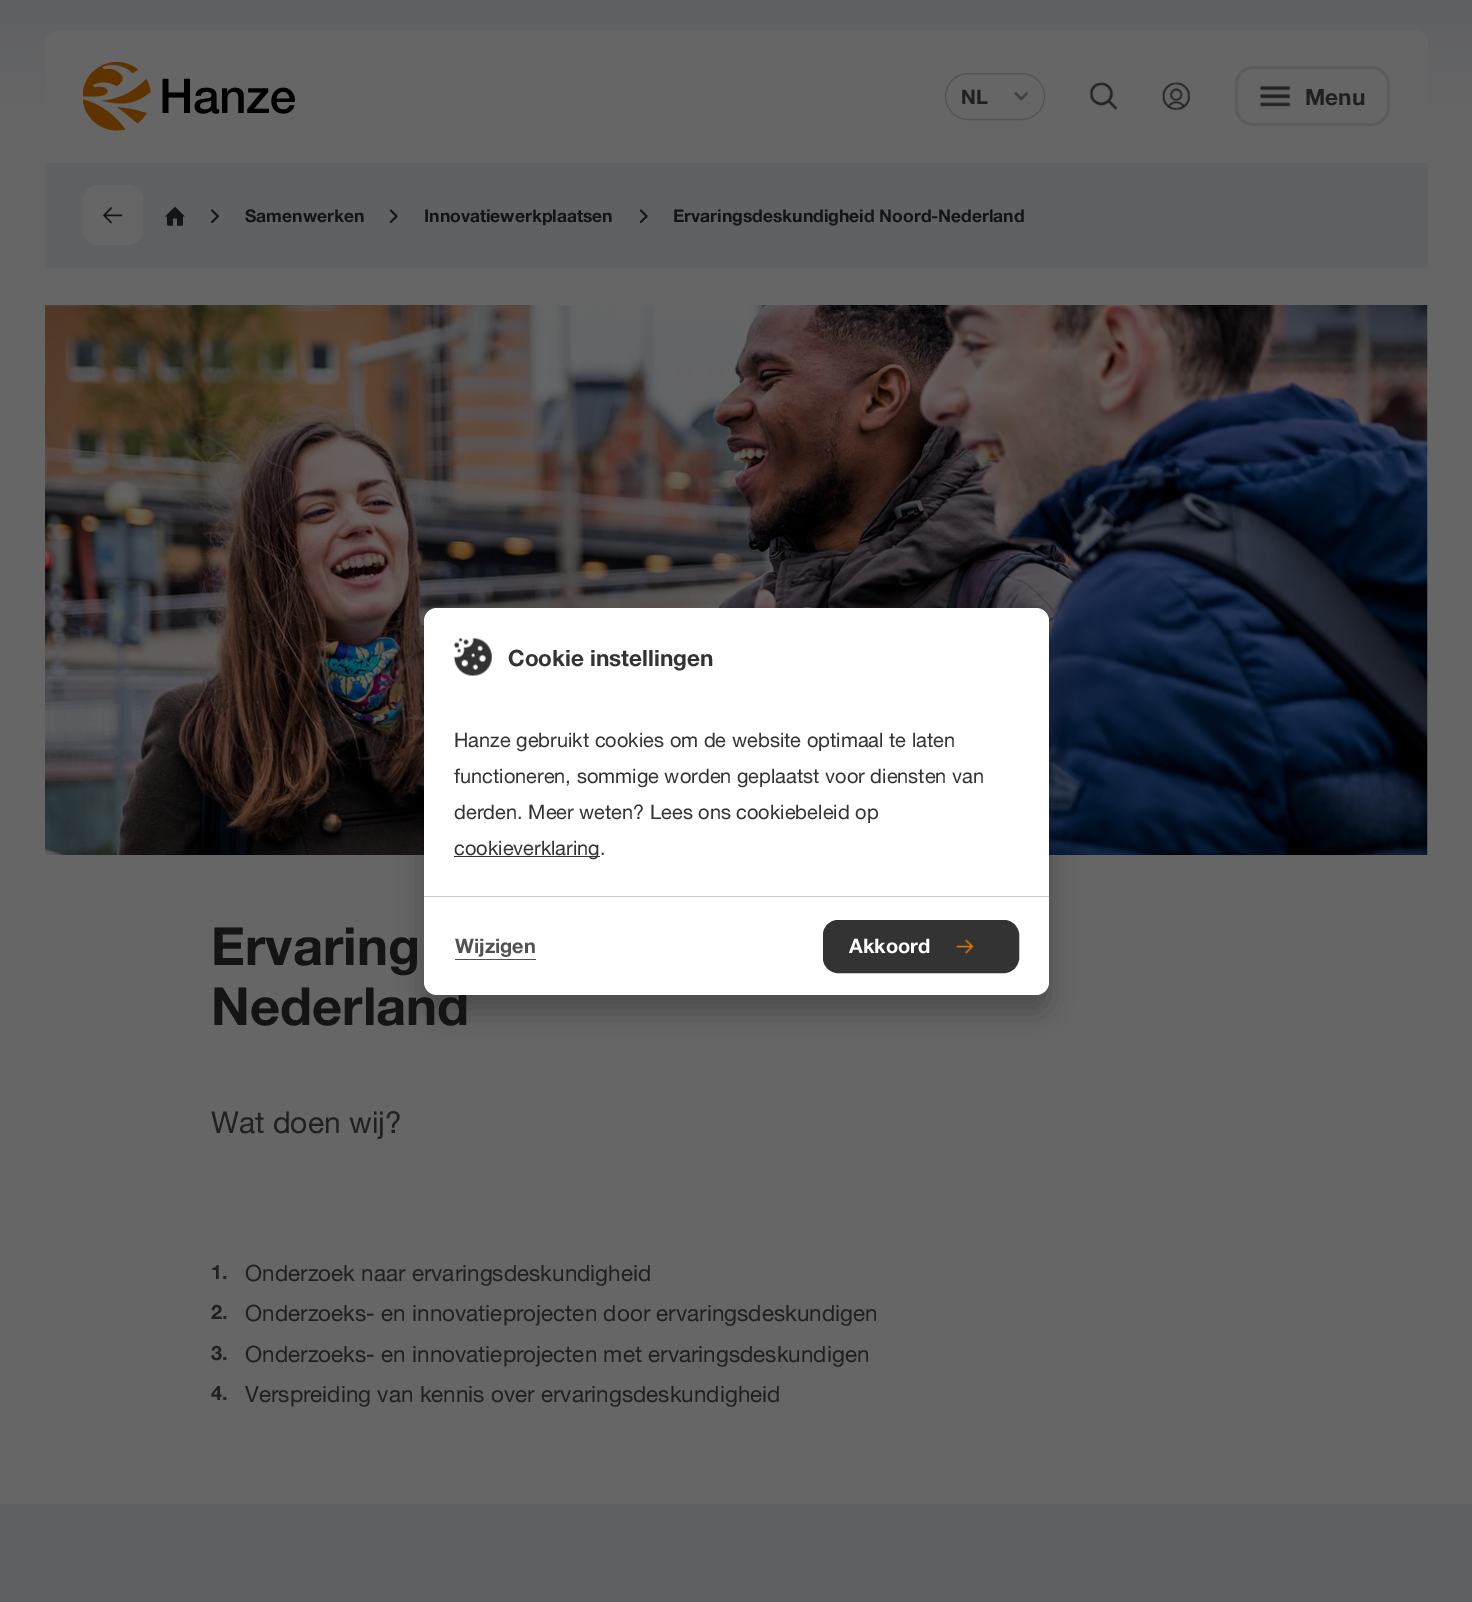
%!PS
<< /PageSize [1472 1602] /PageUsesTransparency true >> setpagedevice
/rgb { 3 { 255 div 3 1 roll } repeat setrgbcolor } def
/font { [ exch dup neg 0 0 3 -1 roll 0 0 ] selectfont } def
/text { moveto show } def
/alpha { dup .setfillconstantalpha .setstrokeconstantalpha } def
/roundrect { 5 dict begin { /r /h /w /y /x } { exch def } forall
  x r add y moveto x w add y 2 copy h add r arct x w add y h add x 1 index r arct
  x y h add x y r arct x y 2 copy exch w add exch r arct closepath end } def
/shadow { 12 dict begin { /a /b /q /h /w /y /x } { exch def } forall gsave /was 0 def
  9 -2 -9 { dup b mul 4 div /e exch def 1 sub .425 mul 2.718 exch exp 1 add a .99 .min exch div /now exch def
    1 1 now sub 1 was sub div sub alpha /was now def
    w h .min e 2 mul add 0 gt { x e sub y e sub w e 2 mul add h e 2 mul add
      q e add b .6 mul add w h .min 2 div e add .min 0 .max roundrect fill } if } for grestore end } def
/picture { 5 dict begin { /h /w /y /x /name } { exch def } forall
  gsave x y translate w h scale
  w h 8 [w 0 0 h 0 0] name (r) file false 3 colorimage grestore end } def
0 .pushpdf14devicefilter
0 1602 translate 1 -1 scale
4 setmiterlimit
255 255 255 rgb
0 0 1472 1602 rectfill
gsave 0 0 moveto 1472 0 rlineto 0 1504 rlineto -1472 0 rlineto closepath clip newpath
<< /ShadingType 2 /ColorSpace /DeviceRGB /Coords [736 0 736 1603] /Extend [true true] /Function << /FunctionType 3 /Domain [0 1] /Functions [<< /FunctionType 2 /Domain [0 1] /C0 [0.376 0.38 0.388] /C1 [0.4 0.4 0.4] /N 1 >> << /FunctionType 2 /Domain [0 1] /C0 [0.4 0.4 0.4] /C1 [0.4 0.4 0.4] /N 1 >>] /Bounds [0.07] /Encode [0 1 0 1] >> >> shfill grestore
102 102 102 rgb
60 30 moveto 1353 0 rlineto 8.5 0 15 6.5 15 15 rcurveto 0 118 rlineto -1383 0 rlineto 0 -118 rlineto 0 -8.5 6.5 -15 15 -15 rcurveto closepath fill
(img_01.rgb) 83 61 212 70 picture
82 82 82 rgb
945.5 73.5 99 46 23 roundrect stroke
(img_02.rgb) 1013 91 16 11 picture
(img_03.rgb) 1089 82 29 28 picture
(img_04.rgb) 1162 82 28 29 picture
92 92 92 rgb
3 setlinewidth
1236.5 67.5 152 57 16.5 roundrect stroke
(img_05.rgb) 1259 86 31 21 picture
96 97 99 rgb
45 163 1383 105 rectfill
102 102 102 rgb
83 185 60 60 15 roundrect fill
(img_06.rgb) 103 207 20 17 picture
(img_07.rgb) 165 206 20 20 picture
(img_08.rgb) 211 209 8 15 picture
(img_09.rgb) 389 209 9 15 picture
(img_09.rgb) 639 209 9 15 picture
(img_10.rgb) 45 305 1383 550 picture
95 96 99 rgb
0 1504 1472 98 rectfill
0 0 0 rgb
424 625 625 388 13 12.5 0.25 shadow
/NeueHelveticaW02-Bold 20 font
32 32 32 rgb
(NL) 961 104 text
/NeueHelveticaW02-Bold 22.5 font
(Menu) 1305 105 text
/NeueHelveticaW02-Bold 17.5 font
20 20 20 rgb
(Samenwerken) 245 222 text
(Innovatiewerkplaatsen) 424 222 text
(Ervaringsdeskundigheid Noord-Nederland) 673 222 text
/NeueHelveticaW02-Bold 52.5 font
(Ervaring) 211 965 text
(Nederland) 211 1025 text
/NeueHelveticaW02-Regular 30 font
32 32 32 rgb
(Wat doen wij?) 211 1133 text
/NeueHelveticaW02-Bold 20 font
(1.) 211 1279 text
/NeueHelveticaW02-Regular 22.5 font
(Onderzoek naar ervaringsdeskundigheid) 245 1281 text
/NeueHelveticaW02-Bold 20 font
(2.) 211 1319 text
/NeueHelveticaW02-Regular 22.5 font
(Onderzoeks- en innovatieprojecten door ervaringsdeskundigen) 245 1321 text
/NeueHelveticaW02-Bold 20 font
(3.) 211 1360 text
/NeueHelveticaW02-Regular 22.5 font
(Onderzoeks- en innovatieprojecten met ervaringsdeskundigen) 245 1362 text
/NeueHelveticaW02-Bold 20 font
(4.) 211 1400 text
/NeueHelveticaW02-Regular 22.5 font
(Verspreiding van kennis over ervaringsdeskundigheid) 245 1402 text
255 255 255 rgb
424 608 625 387 13 roundrect fill
(img_11.rgb) 453 637 39 40 picture
/NeueHelveticaW02-Bold 22.5 font
51 51 51 rgb
(Cookie instellingen) 508 666 text
/NeueHelveticaW02-Regular 20 font
(Hanze gebruikt cookies om de website optimaal te laten) 454 747 text
(functioneren, sommige worden geplaatst voor diensten van) 454 783 text
(derden. Meer weten? Lees ons cookiebeleid op) 454 819 text
454 856 146 1 rectfill
(cookieverklaring.) 454 855 text
204 204 204 rgb
424 896 625 1 rectfill
/NeueHelveticaW02-Bold 20 font
81 81 81 rgb
(Wijzigen) 455 953 text
455 959 81 1 rectfill
51 51 51 rgb
823.5 920.5 195 52 14.5 roundrect gsave fill grestore
1 setlinewidth
stroke
255 255 255 rgb
(Akkoord) 849 953 text
(img_12.rgb) 956 939 18 15 picture
.poppdf14devicefilter showpage
